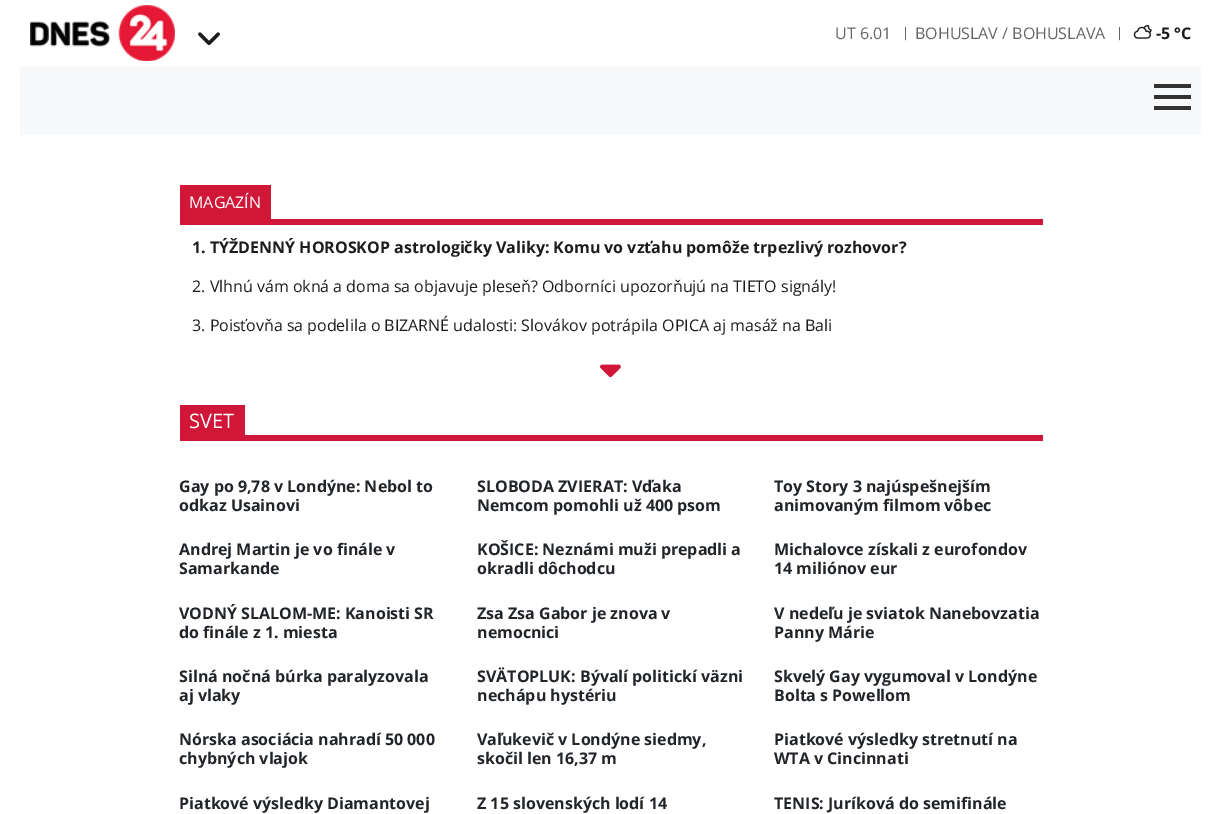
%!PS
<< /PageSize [1221 814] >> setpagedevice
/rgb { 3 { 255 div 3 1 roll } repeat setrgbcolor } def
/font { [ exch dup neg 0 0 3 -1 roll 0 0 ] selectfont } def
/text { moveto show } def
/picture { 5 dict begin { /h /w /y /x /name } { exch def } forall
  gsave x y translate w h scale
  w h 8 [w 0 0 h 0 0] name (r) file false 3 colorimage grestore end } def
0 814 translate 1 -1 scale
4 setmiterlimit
255 255 255 rgb
0 0 1221 814 rectfill
(img_01.rgb) 30 5 145 56 picture
(img_02.rgb) 198 32 22 14 picture
(img_03.rgb) 1133 25 19 14 picture
248 249 250 rgb
20 66 1181 69 rectfill
51 51 51 rgb
1154 84 37 4 rectfill
1154 95 37 4 rectfill
1154 106 37 4 rectfill
208 23 55 rgb
180 219 863 6 rectfill
180 185 91 34 rectfill
(img_04.rgb) 600 364 21 14 picture
180 435 863 6 rectfill
180 405 65 30 rectfill
/OpenSans-Regular 16 font
102 102 102 rgb
(UT 6.01) 835 39 text
/OpenSans-Regular 13 font
(|) 902 37 text
/OpenSans-Regular 16 font
(BOHUSLAV / BOHUSLAVA) 915 39 text
/OpenSans-Regular 13 font
(|) 1116 37 text
/OpenSans-Bold 16 font
28 28 28 rgb
(-5 °C) 1156 39 text
/OpenSans-Regular 16 font
255 255 255 rgb
(MAGAZÍN) 189 208 text
/OpenSans-Bold 16 font
28 28 28 rgb
(1. TÝŽDENNÝ HOROSKOP astrologičky Valiky: Komu vo vzťahu pomôže trpezlivý rozhovor?) 192 253 text
/OpenSans-Regular 16 font
(2. Vlhnú vám okná a doma sa objavuje pleseň? Odborníci upozorňujú na TIETO signály!) 192 292 text
(3. Poisťovňa sa podelila o BIZARNÉ udalosti: Slovákov potrápila OPICA aj masáž na Bali) 192 331 text
/OpenSans-Regular 20 font
255 255 255 rgb
(SVET) 189 428 text
/OpenSans-Bold 16 font
33 37 41 rgb
(Gay po 9,78 v Londýne: Nebol to) 179 492 text
(odkaz Usainovi) 179 511 text
(SLOBODA ZVIERAT: Vďaka) 477 492 text
(Nemcom pomohli už 400 psom) 477 511 text
(Toy Story 3 najúspešnejším) 774 492 text
(animovaným filmom vôbec) 774 511 text
(Andrej Martin je vo finále v) 179 555 text
(Samarkande) 179 574 text
(KOŠICE: Neznámi muži prepadli a) 477 555 text
(okradli dôchodcu) 477 574 text
(Michalovce získali z eurofondov) 774 555 text
(14 miliónov eur) 774 574 text
(VODNÝ SLALOM-ME: Kanoisti SR) 179 619 text
(do finále z 1. miesta) 179 638 text
(Zsa Zsa Gabor je znova v) 477 619 text
(nemocnici) 477 638 text
(V nedeľu je sviatok Nanebovzatia) 774 619 text
(Panny Márie) 774 638 text
(Silná nočná búrka paralyzovala) 179 682 text
(aj vlaky) 179 701 text
(SVÄTOPLUK: Bývalí politickí väzni) 477 682 text
(nechápu hystériu) 477 701 text
(Skvelý Gay vygumoval v Londýne) 774 682 text
(Bolta s Powellom) 774 701 text
(Nórska asociácia nahradí 50 000) 179 745 text
(chybných vlajok) 179 764 text
(Vaľukevič v Londýne siedmy,) 477 745 text
(skočil len 16,37 m) 477 764 text
(Piatkové výsledky stretnutí na) 774 745 text
(WTA v Cincinnati) 774 764 text
(Piatkové výsledky Diamantovej) 179 809 text
(Z 15 slovenských lodí 14) 477 809 text
(TENIS: Juríková do semifinále) 774 809 text
showpage
